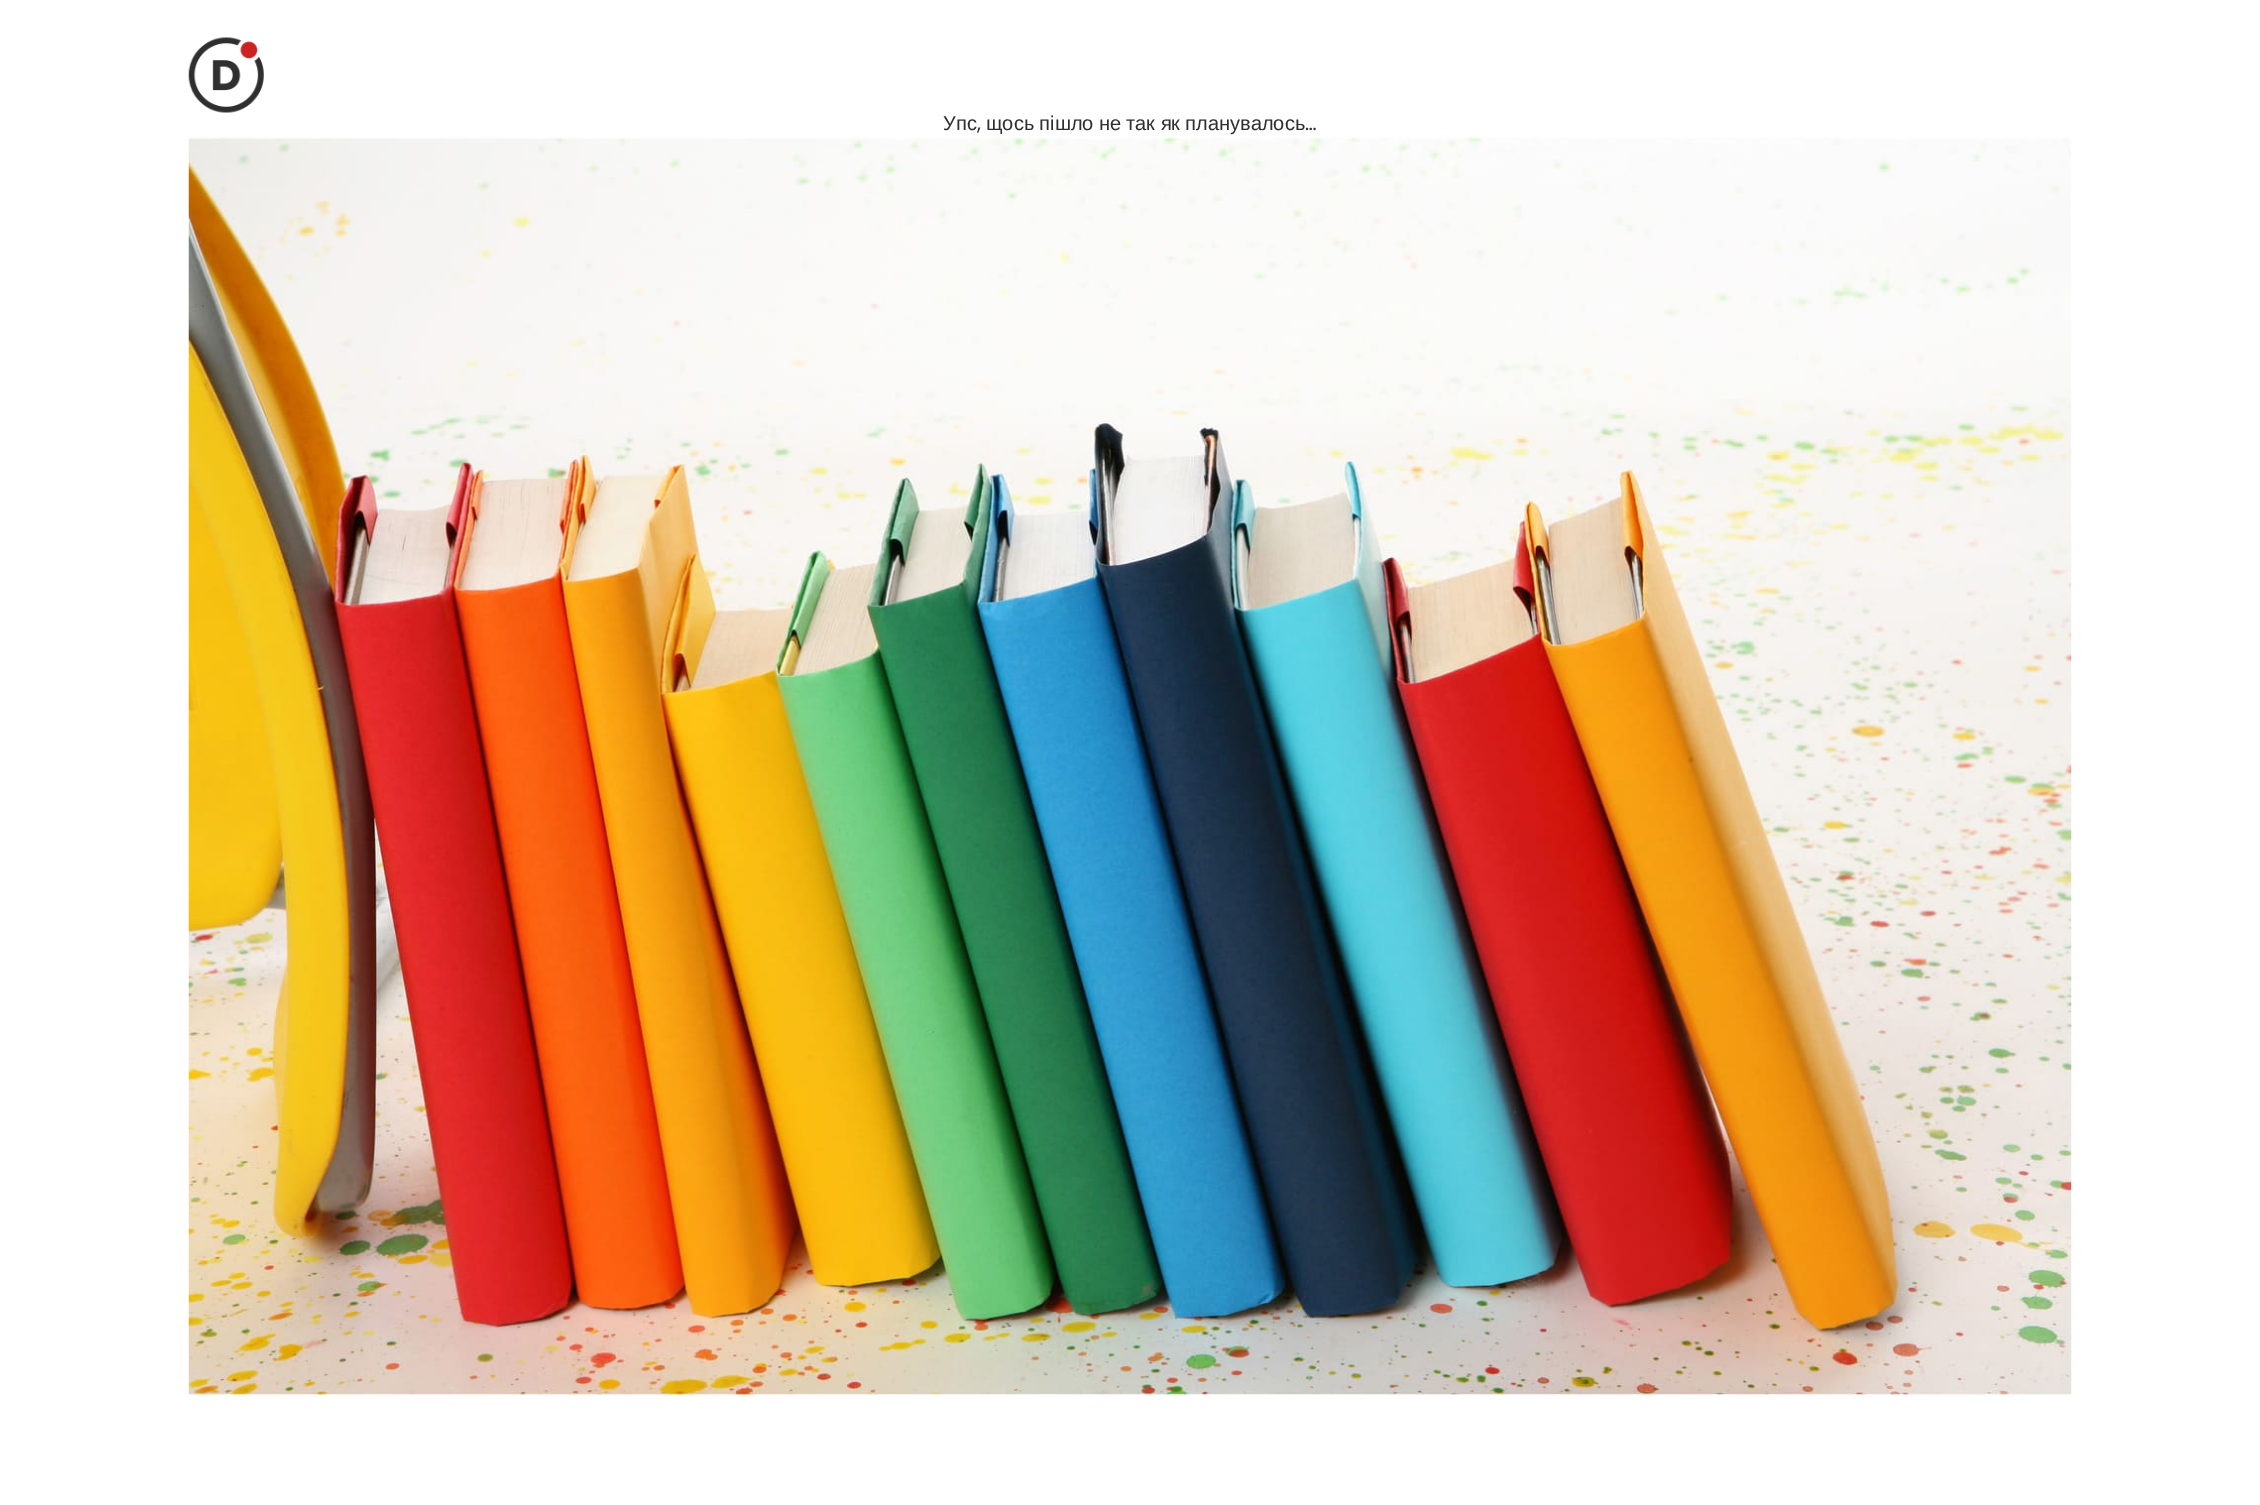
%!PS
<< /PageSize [2260 1505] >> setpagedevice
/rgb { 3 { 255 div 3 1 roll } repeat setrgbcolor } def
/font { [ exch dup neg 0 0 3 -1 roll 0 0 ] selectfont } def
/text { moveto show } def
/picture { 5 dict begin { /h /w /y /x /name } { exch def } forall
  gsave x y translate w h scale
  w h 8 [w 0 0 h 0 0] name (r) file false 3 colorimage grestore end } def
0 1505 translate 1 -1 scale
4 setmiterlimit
255 255 255 rgb
0 0 2260 1505 rectfill
(img_01.rgb) 188 37 76 76 picture
(img_02.rgb) 188 137 1884 1258 picture
/LiberationSans-Regular 20 font
47 47 47 rgb
(Упс) 943 130 text
/Poppins-Regular 20 font
(,) 977 130 text
/LiberationSans-Regular 20 font
986 130 moveto -0.25 0 32 (щось пішло не так як планувалось) widthshow
/Poppins-Regular 20 font
(…) 1305 130 text
showpage
